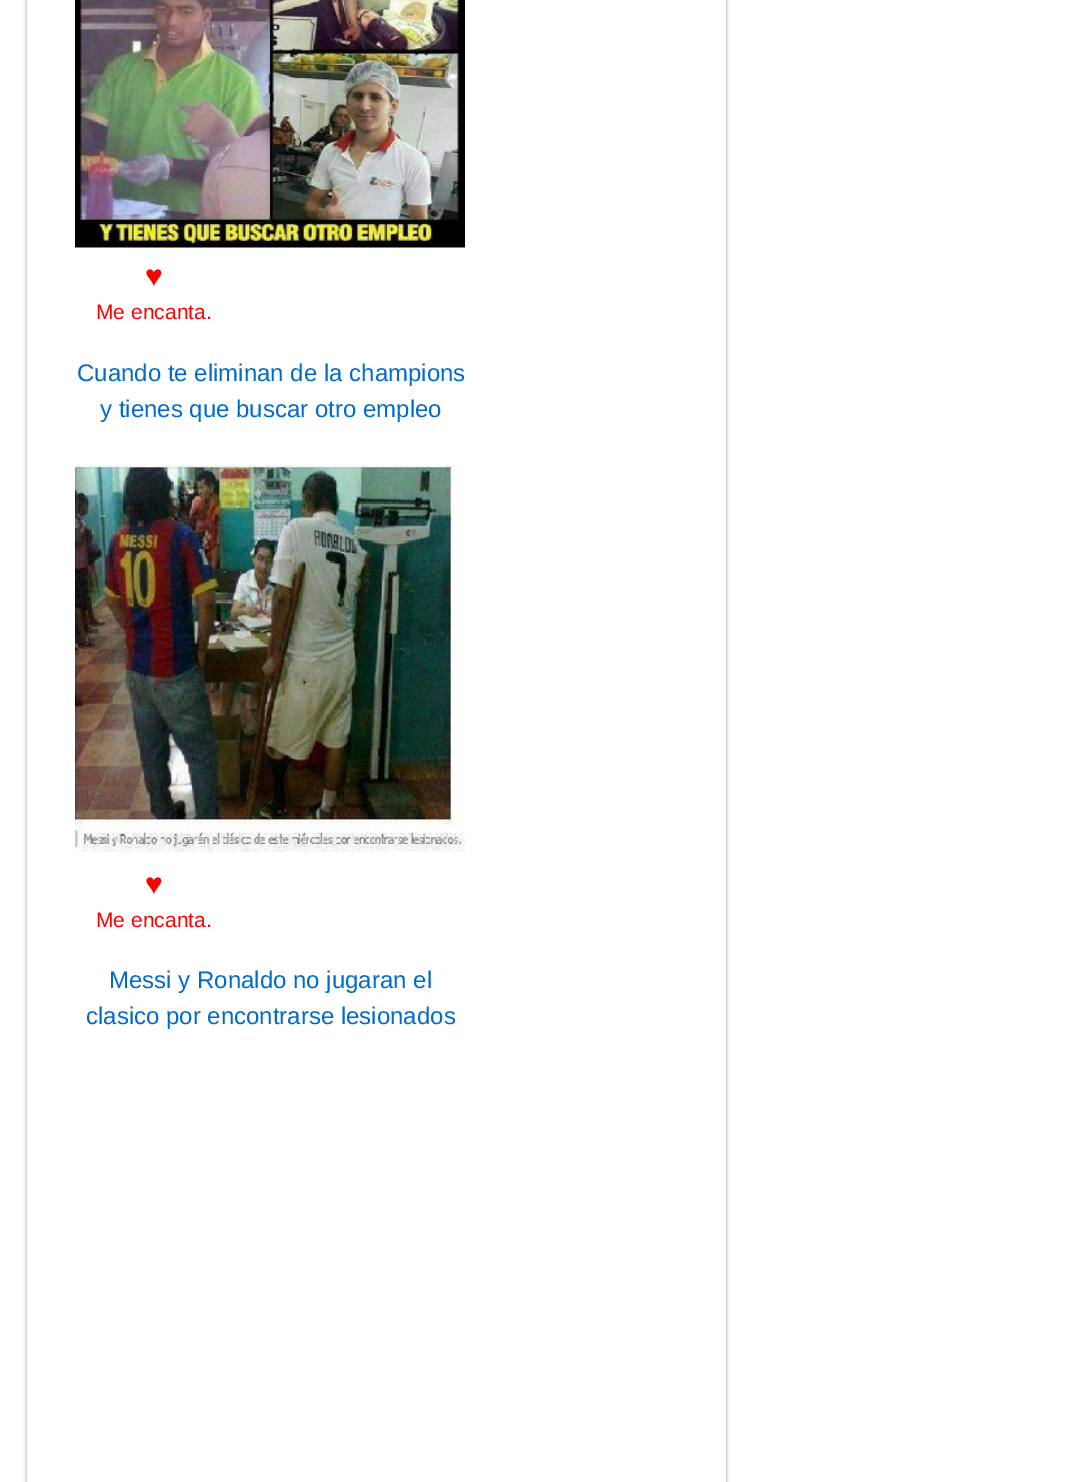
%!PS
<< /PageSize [1083 1482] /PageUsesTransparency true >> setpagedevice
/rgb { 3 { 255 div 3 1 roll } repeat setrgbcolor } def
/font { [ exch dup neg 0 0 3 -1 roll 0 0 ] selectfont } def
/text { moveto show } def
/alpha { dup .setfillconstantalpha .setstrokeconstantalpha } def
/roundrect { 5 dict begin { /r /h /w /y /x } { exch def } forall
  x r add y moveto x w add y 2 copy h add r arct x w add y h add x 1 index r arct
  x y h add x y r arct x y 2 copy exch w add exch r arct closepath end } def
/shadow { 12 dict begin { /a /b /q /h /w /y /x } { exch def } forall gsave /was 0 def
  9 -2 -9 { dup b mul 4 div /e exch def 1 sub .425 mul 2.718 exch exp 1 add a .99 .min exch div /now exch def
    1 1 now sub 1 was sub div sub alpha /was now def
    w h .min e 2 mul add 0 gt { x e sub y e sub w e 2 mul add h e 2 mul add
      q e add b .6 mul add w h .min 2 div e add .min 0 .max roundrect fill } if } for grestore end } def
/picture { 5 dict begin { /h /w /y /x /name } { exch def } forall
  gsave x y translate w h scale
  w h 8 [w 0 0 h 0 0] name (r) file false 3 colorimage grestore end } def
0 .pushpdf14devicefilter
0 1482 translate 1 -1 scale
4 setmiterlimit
255 255 255 rgb
0 0 1083 1482 rectfill
gsave
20 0 moveto 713 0 rlineto 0 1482 rlineto -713 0 rlineto closepath 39 -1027 moveto 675 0 rlineto 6.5 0 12 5.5 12 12 rcurveto 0 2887 rlineto 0 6.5 -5.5 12 -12 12 rcurveto -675 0 rlineto -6.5 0 -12 -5.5 -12 -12 rcurveto 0 -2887 rlineto 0 -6.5 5.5 -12 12 -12 rcurveto closepath eoclip newpath
0 0 0 rgb
27 -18 699 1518 12 2 0.4 shadow
grestore
(img_01.rgb) 75 0 390 248 picture
(img_02.rgb) 75 465 390 387 picture
/LiberationSans-Regular 30 font
255 0 0 rgb
(♥) 145 286 text
/LiberationSans-Regular 21 font
(Me encanta.) 96 319 text
/LiberationSans-Regular 24 font
2 106 203 rgb
(Cuando te eliminan de la champions) 77 381 text
(y tienes que buscar otro empleo) 100 417 text
/LiberationSans-Regular 30 font
255 0 0 rgb
(♥) 145 894 text
/LiberationSans-Regular 21 font
(Me encanta.) 96 927 text
/LiberationSans-Regular 24 font
2 106 203 rgb
(Messi y Ronaldo no jugaran el) 109 988 text
(clasico por encontrarse lesionados) 86 1024 text
.poppdf14devicefilter showpage
